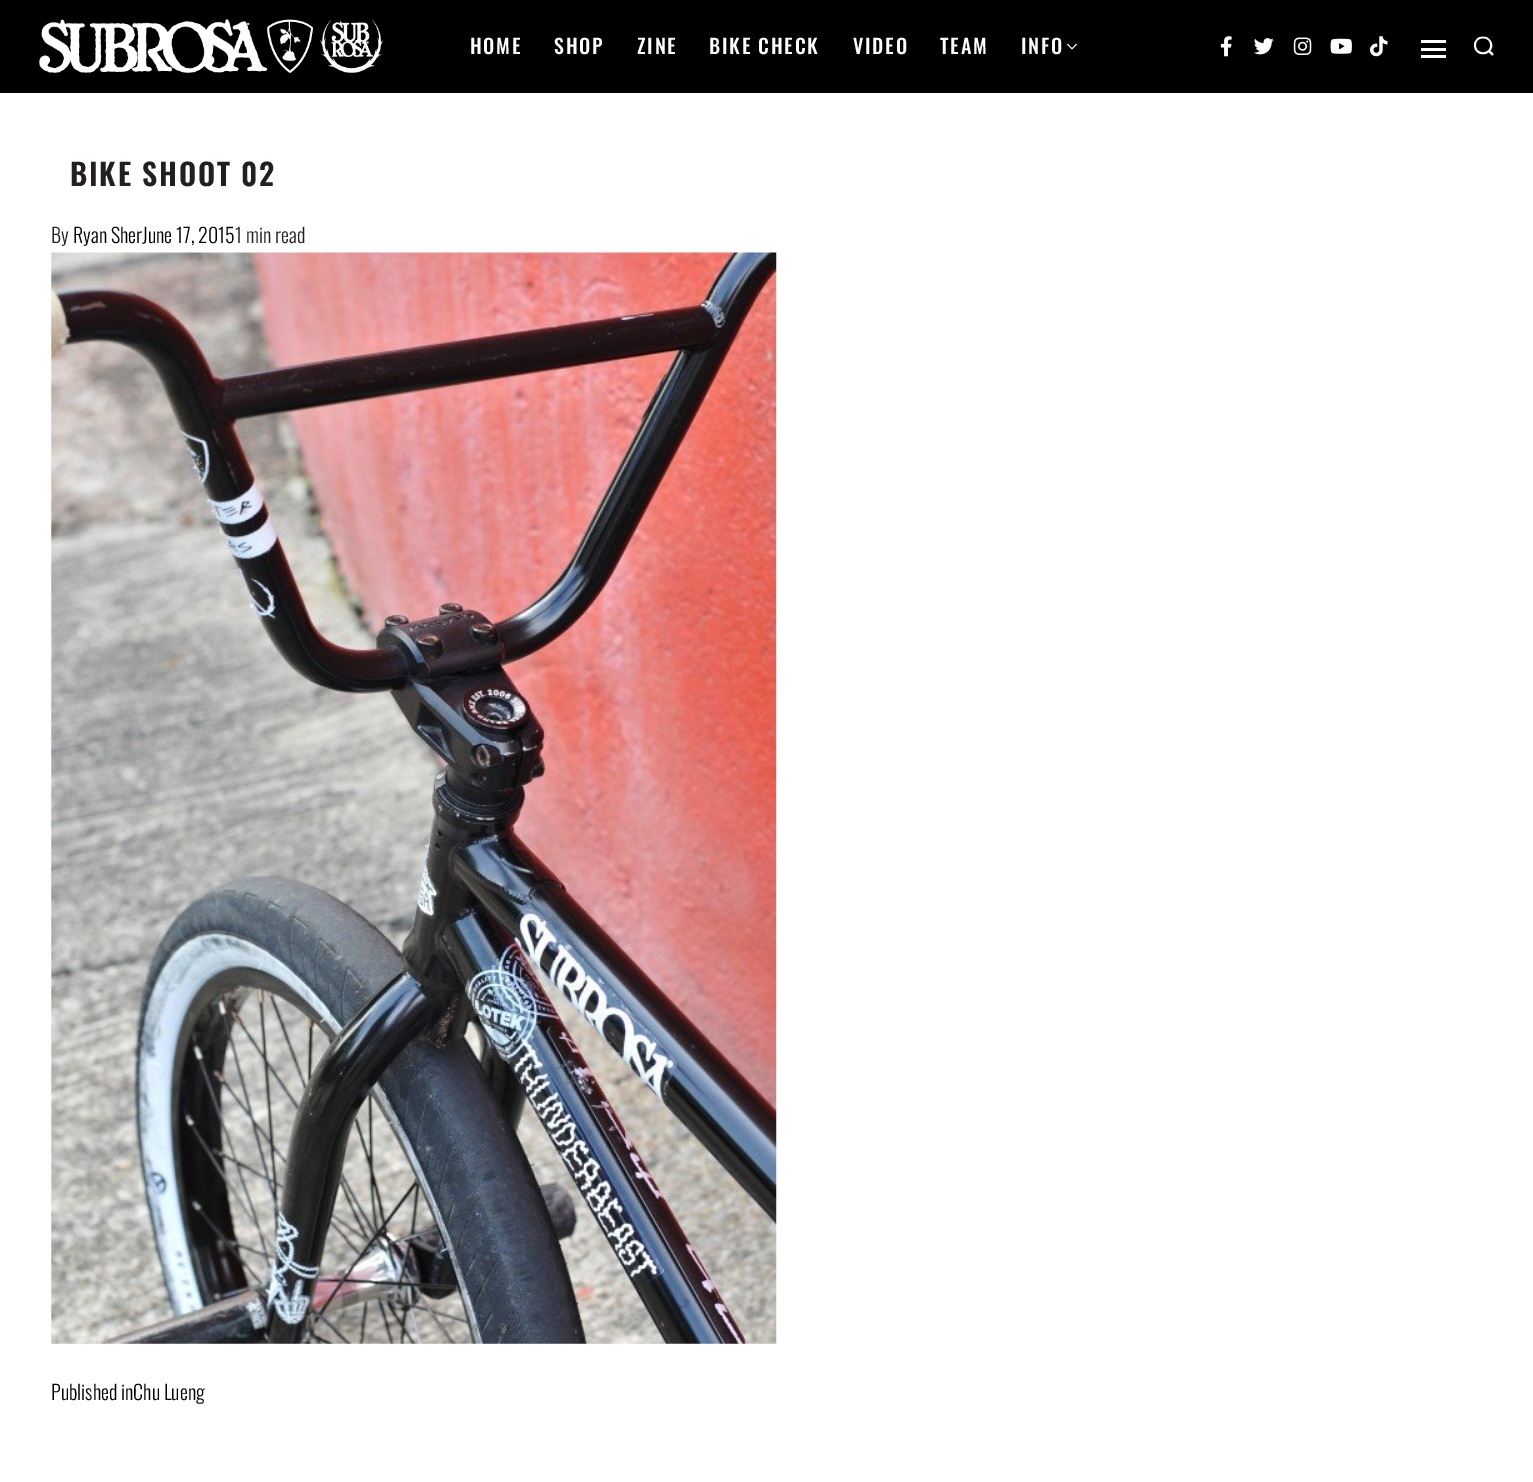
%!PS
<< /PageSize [1533 1482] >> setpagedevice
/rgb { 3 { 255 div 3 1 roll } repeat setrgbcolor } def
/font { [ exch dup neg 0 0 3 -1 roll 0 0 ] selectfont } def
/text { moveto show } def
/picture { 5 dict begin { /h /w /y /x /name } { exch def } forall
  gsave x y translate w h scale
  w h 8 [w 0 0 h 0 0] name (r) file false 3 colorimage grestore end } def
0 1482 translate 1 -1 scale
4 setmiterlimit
255 255 255 rgb
0 0 1533 1482 rectfill
0 0 0 rgb
0 0 1533 93 rectfill
(img_01.rgb) 39 19 344 54 picture
255 255 255 rgb
1077.5 44 moveto -5.5 5.5 rlineto 0 -1.5 rlineto 4 -4 rlineto closepath 1072 49.5 moveto -5.5 -5.5 rlineto 1.5 0 rlineto 4 4 rlineto closepath fill
(img_02.rgb) 1220 36 12 21 picture
(img_03.rgb) 1254 38 20 17 picture
(img_04.rgb) 1293 37 19 18 picture
(img_05.rgb) 1330 38 22 16 picture
(img_06.rgb) 1370 36 18 21 picture
1421 40 25 3 rectfill
1421 48 25 3 rectfill
1421 55 25 3 rectfill
(img_07.rgb) 1474 36 20 20 picture
(img_08.rgb) 51 252 726 1092 picture
/Oswald-Medium 20 font
470 54 moveto 1.75 0 (HOME) ashow
554 54 moveto 1.75 0 (SHOP) ashow
637 54 moveto 1.75 0 (ZINE) ashow
709 54 moveto 1.75 0 (BIKE CHECK) ashow
853 54 moveto 1.75 0 (VIDEO) ashow
940 54 moveto 1.75 0 (TEAM) ashow
1021 54 moveto 1.75 0 (INFO) ashow
/Oswald-SemiBold 30 font
35 31 32 rgb
70 186 moveto 1.75 0 (BIKE SHOOT 02) ashow
/Oswald-Light 20 font
(By) 51 243 text
0 0 0 rgb
(Ryan SherJune 17, 2015) 73 243 text
35 31 32 rgb
(1 min read) 235 243 text
0 0 0 rgb
(Published inChu Lueng) 51 1400 text
showpage
